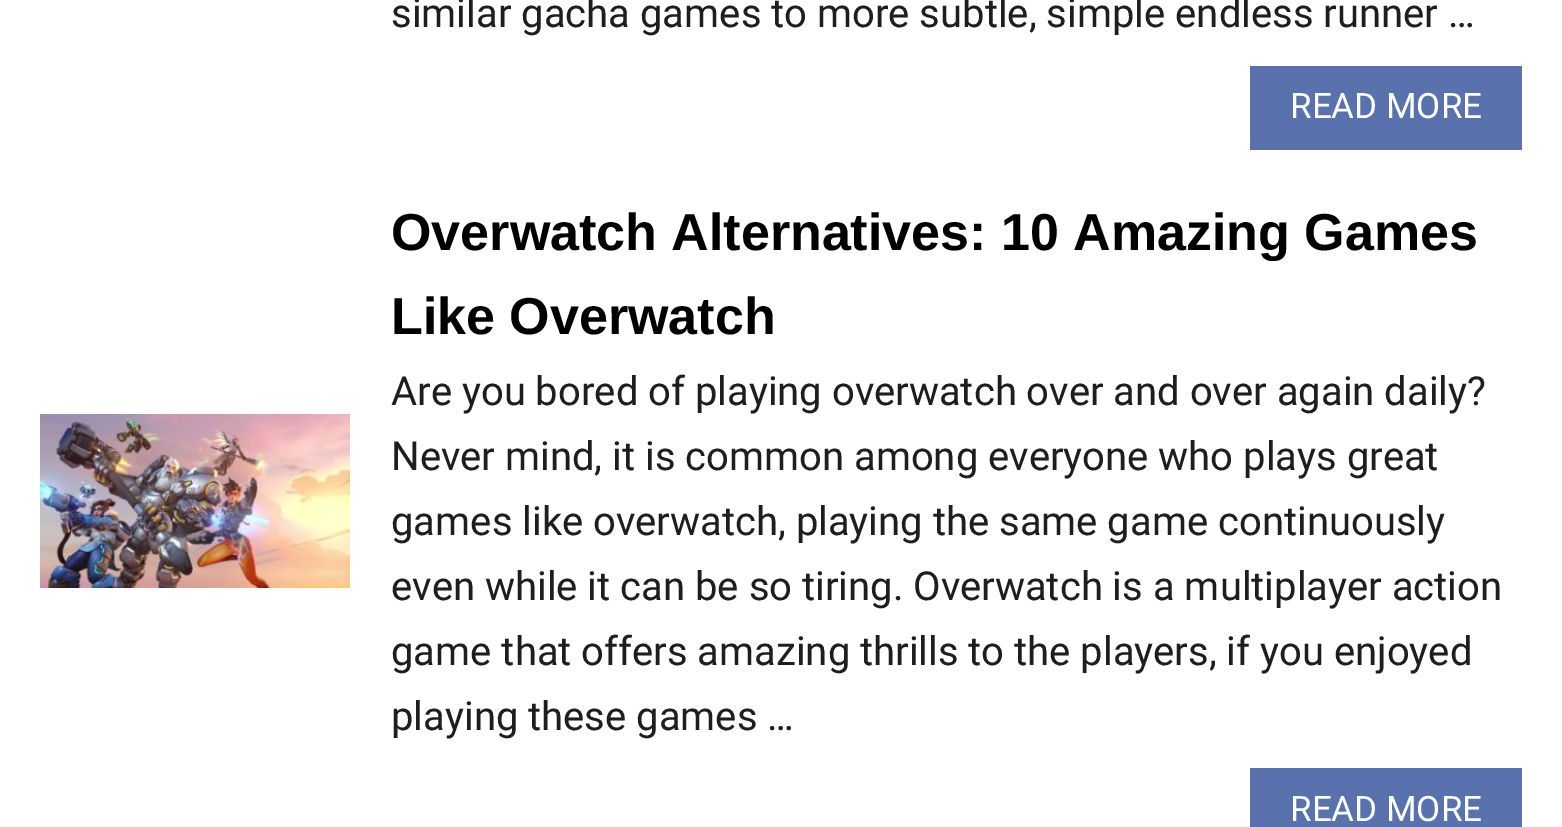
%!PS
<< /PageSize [1562 827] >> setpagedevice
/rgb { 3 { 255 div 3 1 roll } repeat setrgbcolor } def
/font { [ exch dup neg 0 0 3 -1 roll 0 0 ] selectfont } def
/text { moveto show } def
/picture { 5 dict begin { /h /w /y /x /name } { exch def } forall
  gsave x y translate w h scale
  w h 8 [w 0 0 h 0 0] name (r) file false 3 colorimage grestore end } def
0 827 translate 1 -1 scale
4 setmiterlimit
255 255 255 rgb
0 0 1562 827 rectfill
89 113 172 rgb
1250 66 272 84 rectfill
(img_01.rgb) 40 414 310 174 picture
1250 768 272 59 rectfill
/Roboto-Regular 40 font
30 30 30 rgb
(similar gacha games to more subtle, simple endless runner …) 391 27 text
/Roboto-Regular 35 font
255 255 255 rgb
(READ MORE) 1290 118 text
/LiberationSans-Bold 52 font
0 0 0 rgb
(Overwatch Alternatives: 10 Amazing Games) 391 250 text
(Like Overwatch) 391 334 text
/Roboto-Regular 40 font
30 30 30 rgb
(Are you bored of playing overwatch over and over again daily?) 391 405 text
(Never mind, it is common among everyone who plays great) 391 470 text
(games like overwatch, playing the same game continuously) 391 535 text
(even while it can be so tiring. Overwatch is a multiplayer action) 391 600 text
(game that offers amazing thrills to the players, if you enjoyed) 391 665 text
(playing these games …) 391 730 text
/Roboto-Regular 35 font
255 255 255 rgb
(READ MORE) 1290 821 text
showpage
